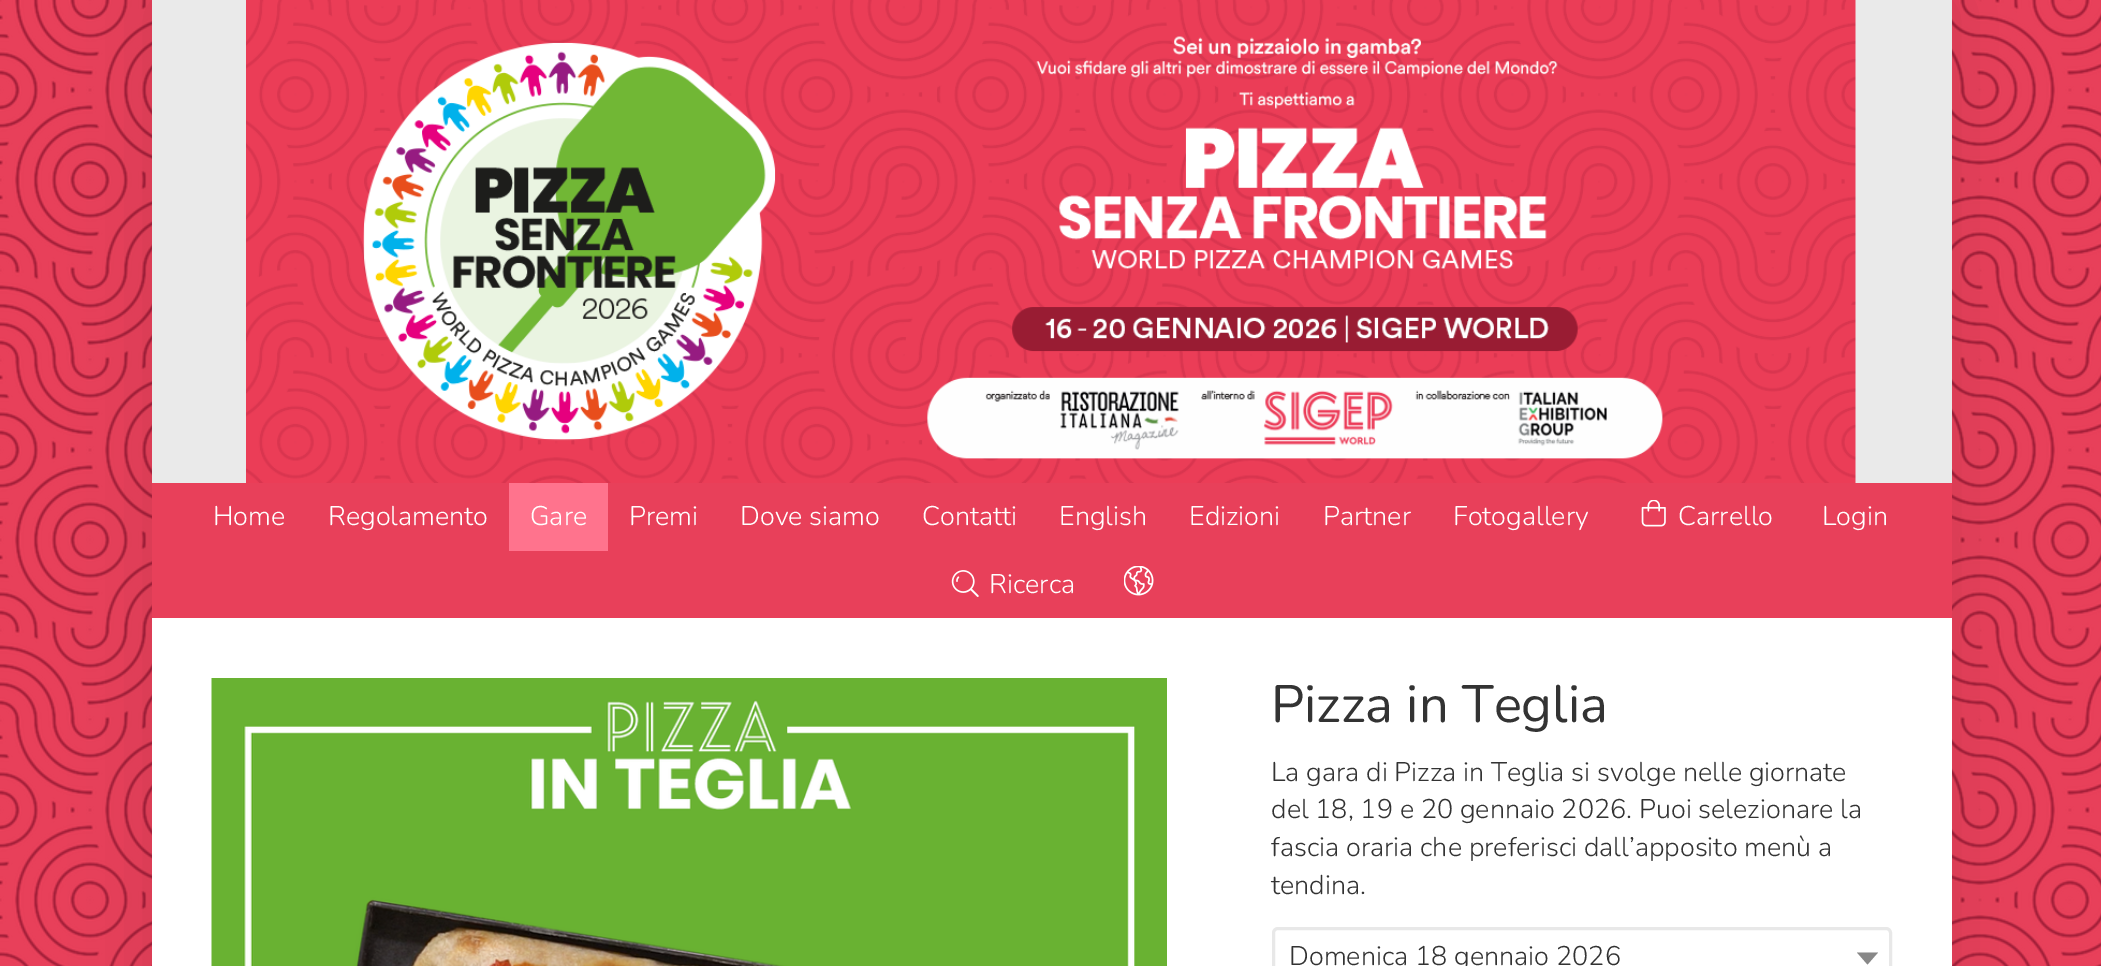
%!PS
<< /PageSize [2101 966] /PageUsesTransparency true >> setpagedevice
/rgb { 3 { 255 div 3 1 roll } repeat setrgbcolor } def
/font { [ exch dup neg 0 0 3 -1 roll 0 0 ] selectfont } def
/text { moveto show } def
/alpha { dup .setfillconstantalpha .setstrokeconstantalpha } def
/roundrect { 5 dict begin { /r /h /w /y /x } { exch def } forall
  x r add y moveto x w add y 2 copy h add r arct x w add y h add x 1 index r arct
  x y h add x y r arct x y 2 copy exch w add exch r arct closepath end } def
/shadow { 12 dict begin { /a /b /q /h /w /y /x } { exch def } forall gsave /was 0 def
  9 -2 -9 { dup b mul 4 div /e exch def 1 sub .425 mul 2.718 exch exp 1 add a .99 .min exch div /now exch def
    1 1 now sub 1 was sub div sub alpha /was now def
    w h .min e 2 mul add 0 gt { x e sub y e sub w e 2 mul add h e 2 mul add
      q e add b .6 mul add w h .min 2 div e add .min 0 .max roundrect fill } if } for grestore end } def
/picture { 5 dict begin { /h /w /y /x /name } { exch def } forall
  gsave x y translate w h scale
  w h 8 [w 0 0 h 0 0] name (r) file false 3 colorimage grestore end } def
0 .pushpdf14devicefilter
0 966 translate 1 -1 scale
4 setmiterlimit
255 255 255 rgb
0 0 2101 966 rectfill
(img_01.rgb) 0 0 2101 966 picture
0 0 0 rgb
152 0 1800 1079 0 37.5 0.1 shadow
255 255 255 rgb
152 618 1800 348 rectfill
234 234 234 rgb
152 0 1800 483 rectfill
(img_02.rgb) 246 0 1610 483 picture
232 64 90 rgb
152 483 1800 135 rectfill
255 115 141 rgb
509 483 99 68 rectfill
(img_03.rgb) 1641 500 25 27 picture
(img_04.rgb) 951 570 28 27 picture
(img_05.rgb) 1124 566 30 30 picture
(img_06.rgb) 211 678 956 288 picture
232 232 232 rgb
3 setlinewidth
1273.5 928.5 617 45 4.5 roundrect stroke
136 136 136 rgb
1857 952.5 moveto 21 0 rlineto -10.5 12 rlineto closepath fill
/Nunito-Light 27 font
255 255 255 rgb
(Home) 213 525 text
(Regolamento) 328 525 text
(Gare) 530 525 text
(Premi) 629 525 text
(Dove siamo) 740 525 text
(Contatti) 922 525 text
(English) 1059 525 text
(Edizioni) 1189 525 text
(Partner) 1323 525 text
(Fotogallery) 1453 525 text
(Carrello) 1678 525 text
(Login) 1822 525 text
(Ricerca) 989 593 text
/Nunito-Regular 52.5 font
51 51 51 rgb
(Pizza in Teglia) 1271 722 text
/Nunito-Light 27 font
(La gara di Pizza in Teglia si svolge nelle giornate) 1271 781 text
(del 18, 19 e 20 gennaio 2026. Puoi selezionare la) 1271 818 text
(fascia oraria che preferisci dall’apposito menù a) 1271 856 text
(tendina.) 1271 894 text
(Domenica 18 gennaio 2026) 1289 965 text
.poppdf14devicefilter showpage
